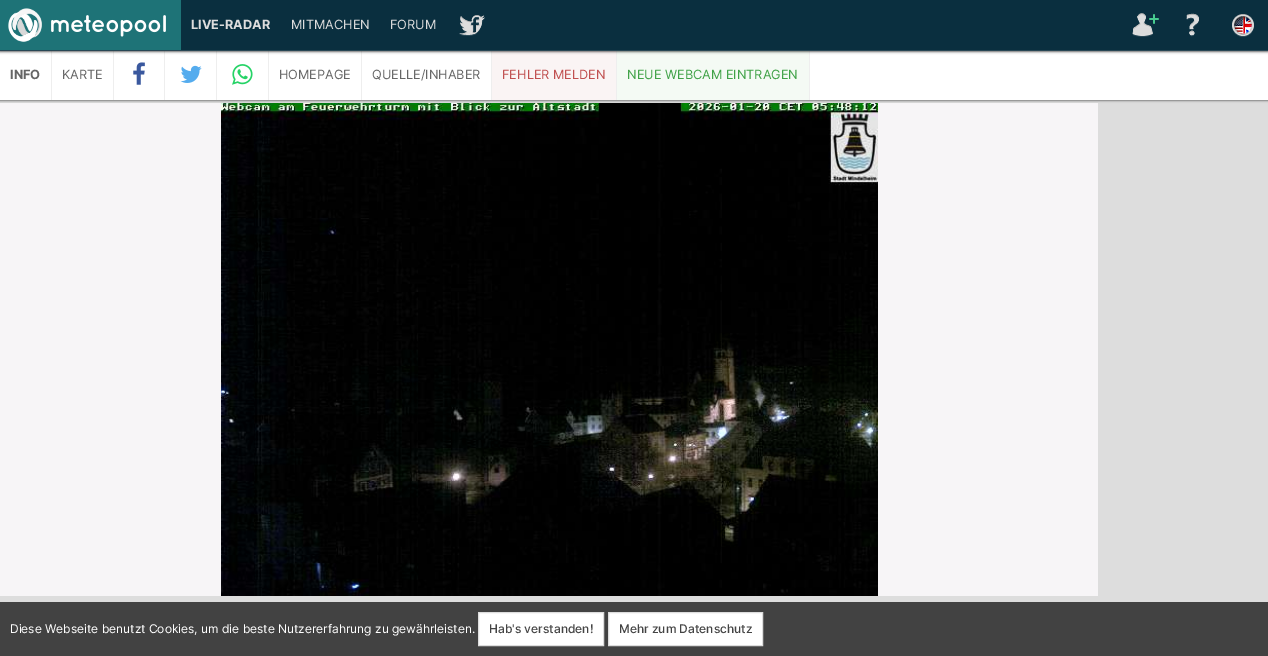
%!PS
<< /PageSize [1268 656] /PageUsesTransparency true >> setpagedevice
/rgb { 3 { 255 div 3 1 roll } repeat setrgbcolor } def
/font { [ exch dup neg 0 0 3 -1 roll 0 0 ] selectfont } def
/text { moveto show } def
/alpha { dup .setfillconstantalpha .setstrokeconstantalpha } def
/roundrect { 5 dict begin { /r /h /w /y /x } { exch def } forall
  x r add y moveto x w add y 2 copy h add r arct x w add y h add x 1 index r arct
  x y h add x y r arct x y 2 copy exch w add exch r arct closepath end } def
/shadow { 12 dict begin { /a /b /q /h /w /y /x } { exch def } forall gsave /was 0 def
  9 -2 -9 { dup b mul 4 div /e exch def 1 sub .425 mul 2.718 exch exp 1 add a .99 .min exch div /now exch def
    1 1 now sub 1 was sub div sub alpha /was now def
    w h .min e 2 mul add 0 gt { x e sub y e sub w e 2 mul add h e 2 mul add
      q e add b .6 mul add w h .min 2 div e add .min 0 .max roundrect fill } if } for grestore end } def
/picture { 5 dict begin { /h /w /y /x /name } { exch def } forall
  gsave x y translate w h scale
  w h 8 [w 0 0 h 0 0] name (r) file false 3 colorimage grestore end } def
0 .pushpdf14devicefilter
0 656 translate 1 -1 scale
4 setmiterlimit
221 221 221 rgb
0 0 1268 656 rectfill
247 245 247 rgb
0 103 1098 493 rectfill
(img_10.rgb) 221 103 657 493 picture
136 136 136 rgb
0 50 1268 51 0 1 1 shadow
255 255 255 rgb
0 51 1268 49 rectfill
238 238 238 rgb
51 50 1 50 rectfill
113 50 1 50 rectfill
164 50 1 50 rectfill
216 50 1 50 rectfill
268 50 1 50 rectfill
361 50 1 50 rectfill
491 50 1 50 rectfill
250 244 244 rgb
492 51 124 49 rectfill
238 238 238 rgb
616 50 1 50 rectfill
244 250 244 rgb
617 51 192 49 rectfill
238 238 238 rgb
809 50 1 50 rectfill
0 0 0 rgb
0 0 1268 51 0 1.5 1 shadow
10 47 63 rgb
181 0 1087 50 rectfill
40 71 85 rgb
0 50 1268 1 rectfill
30 115 119 rgb
0 0 181 50 rectfill
(img_01.rgb) 8 8 34 34 picture
(img_02.rgb) 51 15 115 22 picture
(img_03.rgb) 459 15 26 21 picture
(img_04.rgb) 1132 13 27 24 picture
(img_05.rgb) 1186 13 13 24 picture
(img_06.rgb) 1232 14 22 23 picture
153 153 153 rgb
0 100 1268 1 rectfill
(img_07.rgb) 133 62 12 23 picture
(img_08.rgb) 180 65 22 18 picture
(img_09.rgb) 232 64 21 21 picture
66 66 66 rgb
0 602 1268 54 rectfill
255 255 255 rgb
478.5 612.5 moveto 125 0 rlineto 0 33 rlineto -125 0 rlineto closepath gsave fill grestore
221 221 221 rgb
stroke
255 255 255 rgb
608.5 612.5 moveto 154 0 rlineto 0 33 rlineto -154 0 rlineto closepath gsave fill grestore
221 221 221 rgb
stroke
/Inter-Bold 12.75 font
(LIVE-RADAR) 191 29 text
/Inter-Regular 12.75 font
(MITMACHEN) 291 29 text
(FORUM) 390 29 text
/Inter-Bold 12.75 font
102 102 102 rgb
(INFO) 10 79 text
/Inter-Regular 12.75 font
(KARTE) 62 79 text
(HOMEPAGE) 279 79 text
(QUELLE/INHABER) 372 79 text
192 79 79 rgb
(FEHLER MELDEN) 502 79 text
64 162 71 rgb
(NEUE WEBCAM EINTRAGEN) 627 79 text
/Inter-Regular 12 font
255 255 255 rgb
(Diese Webseite benutzt Cookies, um die beste Nutzererfahrung zu gewährleisten.) 10 633 text
/Inter-Medium 12 font
68 68 68 rgb
(Hab's verstanden!) 489 633 text
(Mehr zum Datenschutz) 619 633 text
.poppdf14devicefilter showpage
